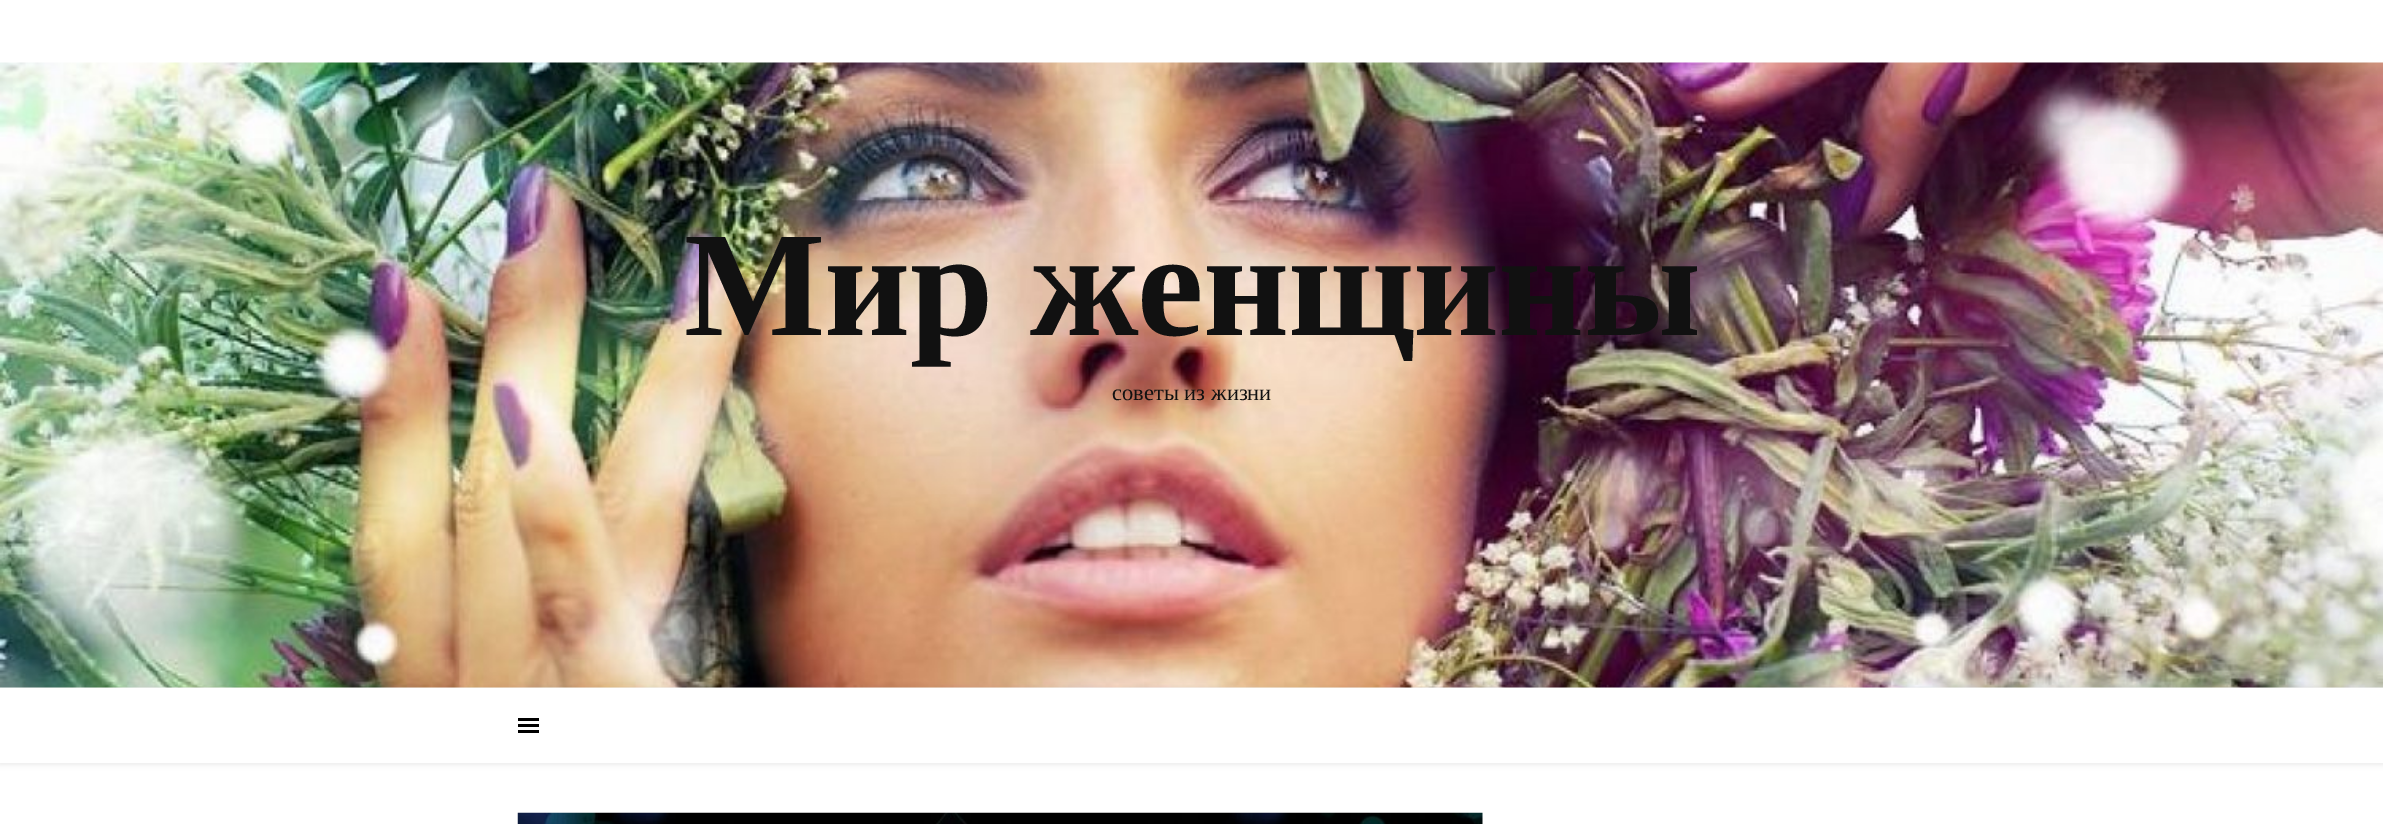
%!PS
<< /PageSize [2383 824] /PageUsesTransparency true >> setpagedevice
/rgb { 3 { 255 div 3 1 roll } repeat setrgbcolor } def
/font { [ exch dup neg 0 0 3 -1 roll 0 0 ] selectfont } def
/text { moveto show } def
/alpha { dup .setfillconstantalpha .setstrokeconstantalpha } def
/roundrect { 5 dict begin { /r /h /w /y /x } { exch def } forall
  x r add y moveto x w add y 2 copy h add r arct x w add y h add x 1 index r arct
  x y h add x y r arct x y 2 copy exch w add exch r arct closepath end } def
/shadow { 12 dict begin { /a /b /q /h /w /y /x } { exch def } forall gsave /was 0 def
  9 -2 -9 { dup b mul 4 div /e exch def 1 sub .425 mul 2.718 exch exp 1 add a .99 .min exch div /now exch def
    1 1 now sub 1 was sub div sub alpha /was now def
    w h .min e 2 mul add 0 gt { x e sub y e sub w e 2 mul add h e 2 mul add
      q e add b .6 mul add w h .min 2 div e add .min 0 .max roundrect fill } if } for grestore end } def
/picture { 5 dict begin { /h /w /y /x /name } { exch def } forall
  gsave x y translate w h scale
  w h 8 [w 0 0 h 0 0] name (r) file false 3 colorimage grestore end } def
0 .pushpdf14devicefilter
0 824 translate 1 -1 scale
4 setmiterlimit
255 255 255 rgb
0 0 2383 824 rectfill
(img_01.rgb) 0 62 2383 626 picture
0 0 0 rgb
0 689 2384 75 0 3 0.1 shadow
255 255 255 rgb
0 688 2383 75 rectfill
0 0 0 rgb
518 718 21 3 rectfill
518 724 21 3 rectfill
518 730 21 3 rectfill
(img_02.rgb) 517 812 966 12 picture
/LiberationSerif-Bold 150 font
17 17 17 rgb
684 335 moveto 2 0 32 -1.25 0 (Мир женщины) awidthshow
/LiberationSerif-Regular 22.5 font
(советы из жизни) 1112 400 text
.poppdf14devicefilter showpage
